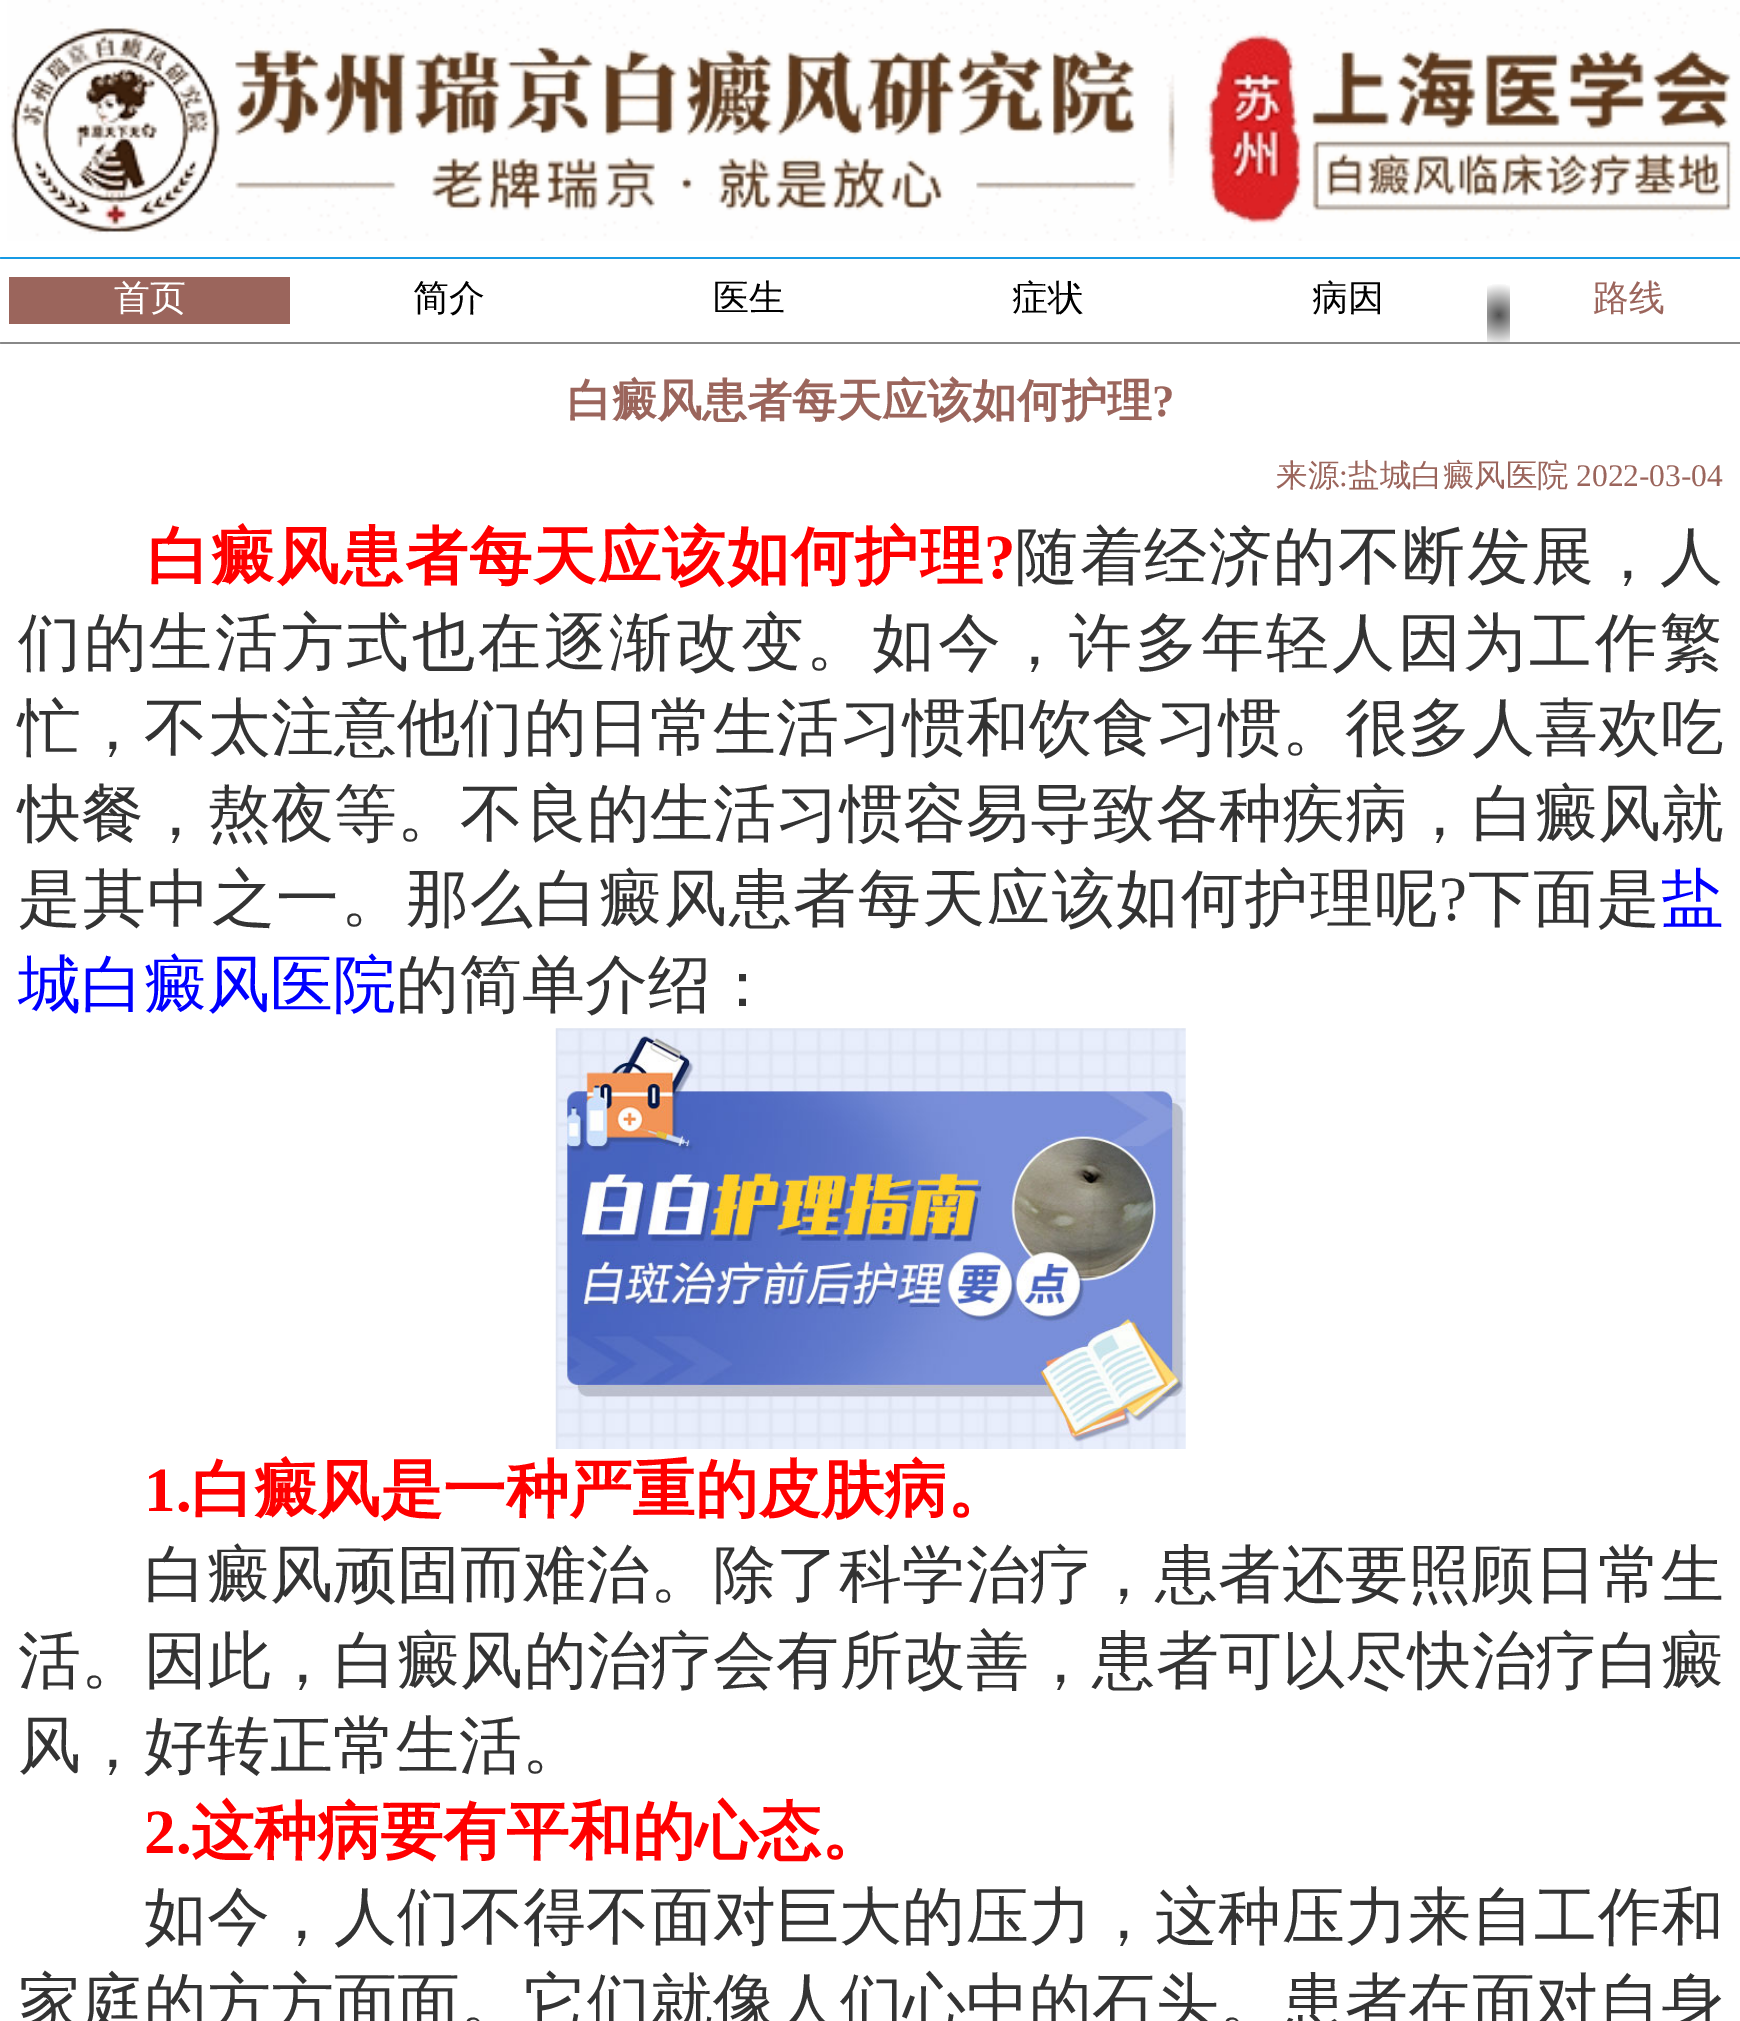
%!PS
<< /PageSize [1740 2021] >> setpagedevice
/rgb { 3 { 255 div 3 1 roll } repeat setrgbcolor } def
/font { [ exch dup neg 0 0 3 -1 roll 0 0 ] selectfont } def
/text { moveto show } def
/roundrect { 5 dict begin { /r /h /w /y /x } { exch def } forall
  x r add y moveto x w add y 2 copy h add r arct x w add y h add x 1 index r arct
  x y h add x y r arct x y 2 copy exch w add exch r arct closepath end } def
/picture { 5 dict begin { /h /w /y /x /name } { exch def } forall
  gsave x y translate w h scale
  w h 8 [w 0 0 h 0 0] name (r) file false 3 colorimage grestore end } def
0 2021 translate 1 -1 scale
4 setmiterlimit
255 255 255 rgb
0 0 1740 2021 rectfill
(img_01.rgb) 7 0 1733 241 picture
22 154 228 rgb
0 257 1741 2 1 roundrect fill
155 101 92 rgb
9 277 281 47 rectfill
gsave 1487 283 moveto 23 0 rlineto 0 59 rlineto -23 0 rlineto closepath clip newpath 1499 315 translate 32 32 scale
<< /ShadingType 3 /ColorSpace /DeviceRGB /Coords [0 0 0 0 0 1] /Extend [true true] /Function << /FunctionType 2 /Domain [0 1] /C0 [0.318 0.318 0.318] /C1 [1 1 1] /N 1 >> >> shfill grestore
136 136 136 rgb
0 342 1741 2 1 roundrect fill
(img_02.rgb) 555 1028 631 421 picture
/WenQuanYiZenHei-Medium 36 font
255 255 255 rgb
(首页) 114 310 text
0 0 0 rgb
(简介) 413 310 text
(医生) 713 310 text
(症状) 1012 310 text
(病因) 1312 310 text
155 101 92 rgb
(路线) 1593 310 text
/WenQuanYiZenHei-Bold 45 font
(白癜风患者每天应该如何护理) 567 416 text
/LiberationSerif-Bold 45 font
(?) 1152 416 text
/WenQuanYiZenHei-Medium 31.5 font
(来源) 1276 486 text
/LiberationSerif-Regular 31.5 font
(:) 1339 486 text
/WenQuanYiZenHei-Medium 31.5 font
(盐城白癜风医院) 1348 486 text
/LiberationSerif-Regular 31.5 font
(2022-03-04) 1576 486 text
/WenQuanYiZenHei-Bold 63 font
255 0 0 rgb
147 578 moveto 1.4 0 (白癜风患者每天应该如何护理) ashow
/LiberationSerif-Bold 63 font
984 578 moveto 1.4 0 (?) ashow
/WenQuanYiZenHei-Medium 63 font
51 51 51 rgb
1015 578 moveto 1.5 0 (随着经济的不断发展，人) ashow
18 664 moveto 2.7 0 (们的生活方式也在逐渐改变。如今，许多年轻人因为工作繁) ashow
18 749 moveto 0.2 0 (忙，不太注意他们的日常生活习惯和饮食习惯。很多人喜欢吃) ashow
18 835 moveto 0.2 0 (快餐，熬夜等。不良的生活习惯容易导致各种疾病，白癜风就) ashow
18 920 moveto 1.6 0 (是其中之一。那么白癜风患者每天应该如何护理呢) ashow
/LiberationSerif-Regular 63 font
1439 920 moveto 1.6 0 (?) ashow
/WenQuanYiZenHei-Medium 63 font
1468 920 moveto 1.6 0 (下面是) ashow
0 0 255 rgb
(盐) 1661 920 text
(城白癜风医院) 18 1006 text
51 51 51 rgb
(的简单介绍：) 396 1006 text
/LiberationSerif-Bold 63 font
255 0 0 rgb
(1.) 144 1511 text
/WenQuanYiZenHei-Bold 63 font
(白癜风是一种严重的皮肤病。) 191 1511 text
/WenQuanYiZenHei-Medium 63 font
51 51 51 rgb
144 1596 moveto 0.2 0 (白癜风顽固而难治。除了科学治疗，患者还要照顾日常生) ashow
18 1682 moveto 0.2 0 (活。因此，白癜风的治疗会有所改善，患者可以尽快治疗白癜) ashow
(风，好转正常生活。) 18 1767 text
/LiberationSerif-Bold 63 font
255 0 0 rgb
(2.) 144 1853 text
/WenQuanYiZenHei-Bold 63 font
(这种病要有平和的心态。) 191 1853 text
/WenQuanYiZenHei-Medium 63 font
51 51 51 rgb
144 1938 moveto 0.2 0 (如今，人们不得不面对巨大的压力，这种压力来自工作和) ashow
18 2024 moveto 0.2 0 (家庭的方方面面。它们就像人们心中的石头。患者在面对自身) ashow
showpage
